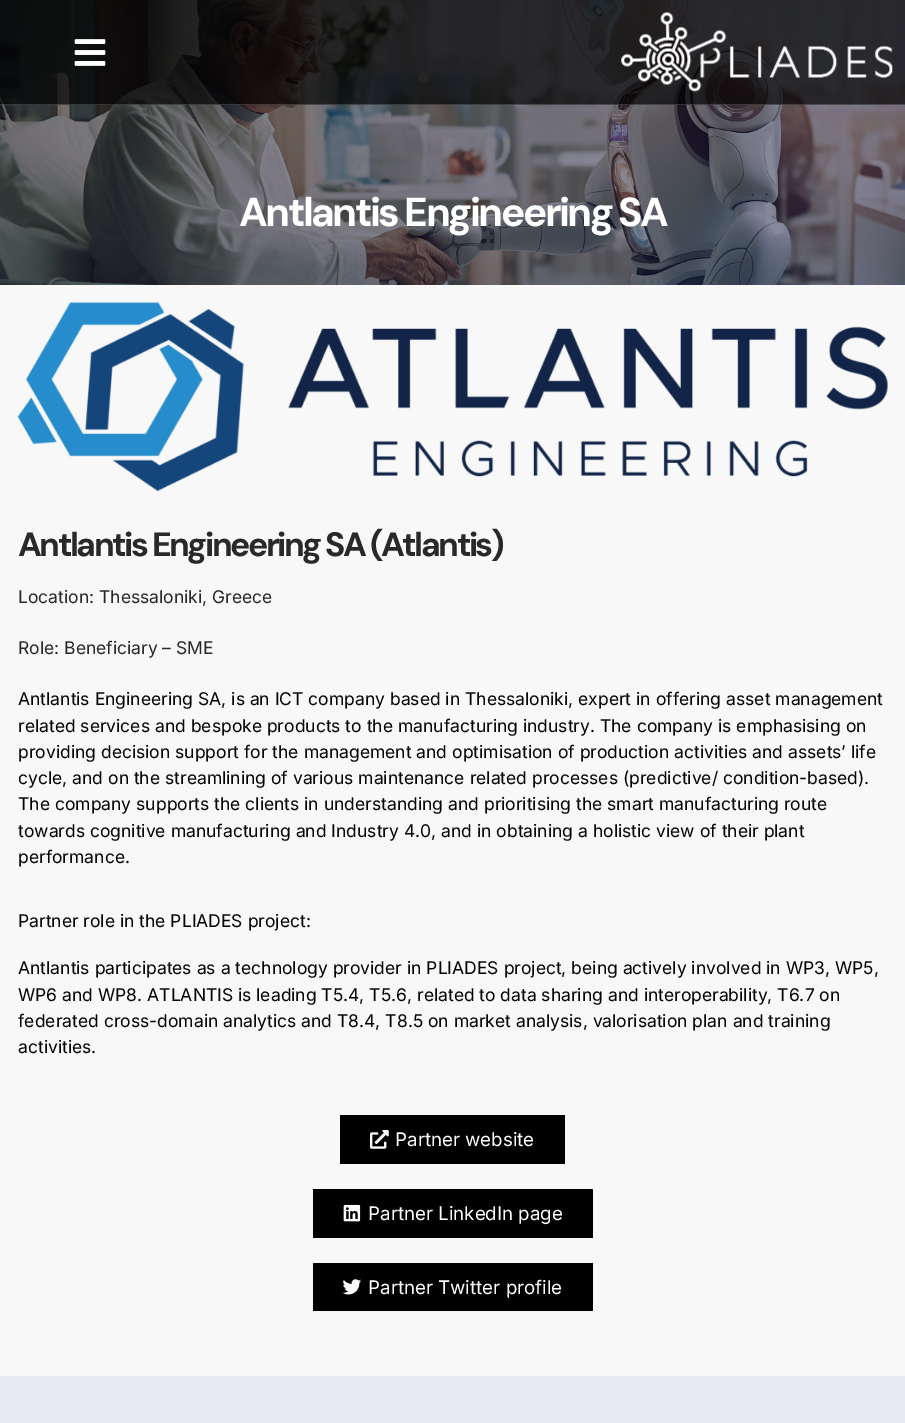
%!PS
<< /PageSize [905 1423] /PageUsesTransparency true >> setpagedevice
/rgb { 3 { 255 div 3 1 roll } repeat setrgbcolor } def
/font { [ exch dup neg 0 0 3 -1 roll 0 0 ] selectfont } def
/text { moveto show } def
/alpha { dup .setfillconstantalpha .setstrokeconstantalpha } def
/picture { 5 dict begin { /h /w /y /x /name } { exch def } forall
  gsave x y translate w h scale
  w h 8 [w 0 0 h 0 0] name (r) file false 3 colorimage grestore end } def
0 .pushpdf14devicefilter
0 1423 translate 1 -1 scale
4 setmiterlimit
248 248 248 rgb
0 0 905 1423 rectfill
gsave 0 0 moveto 905 0 rlineto 0 285 rlineto -905 0 rlineto closepath clip newpath
<< /ShadingType 2 /ColorSpace /DeviceRGB /Coords [151 -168 754 436] /Extend [true true] /Function << /FunctionType 2 /Domain [0 1] /C0 [0.016 0.016 0.016] /C1 [0.051 0.09 0.255] /N 1 >> >> shfill grestore
(img_03.rgb) 0 0 905 285 picture
0.69 alpha
0 0 0 rgb
0 0 905 105 rectfill
0.17 alpha
255 255 255 rgb
0 104 905 1 rectfill
1 alpha
(img_01.rgb) 74 39 32 27 picture
(img_02.rgb) 621 12 272 80 picture
(img_04.rgb) 17 302 871 190 picture
0 0 0 rgb
340 1115 225 49 rectfill
(img_05.rgb) 370 1130 19 19 picture
313 1189 280 49 rectfill
(img_06.rgb) 343 1204 18 18 picture
313 1263 280 48 rectfill
(img_07.rgb) 343 1279 18 16 picture
231 235 239 rgb
0 1376 905 47 rectfill
/DMSans-Bold 40.5 font
255 255 255 rgb
239 226 moveto -2.5 0 (Antlantis Engineering SA) ashow
/DMSans-Bold 33.75 font
41 41 41 rgb
18 556 moveto -2.5 0 (Antlantis Engineering SA \(Atlantis\)) ashow
/Inter-Regular 17.5 font
(Location: Thessaloniki, Greece) 18 603 text
(Role: Beneficiary – SME) 18 654 text
4 4 4 rgb
(Antlantis Engineering SA, is an ICT company based in Thessaloniki, expert in offering asset management) 18 705 text
(related services and bespoke products to the manufacturing industry. The company is emphasising on) 18 732 text
(providing decision support for the management and optimisation of production activities and assets’ life) 18 758 text
(cycle, and on the streamlining of various maintenance related processes \(predictive/ condition-based\).) 18 784 text
(The company supports the clients in understanding and prioritising the smart manufacturing route) 18 810 text
(towards cognitive manufacturing and Industry 4.0, and in obtaining a holistic view of their plant) 18 837 text
(performance.) 18 863 text
(Partner role in the PLIADES project:) 18 927 text
(Antlantis participates as a technology provider in PLIADES project, being actively involved in WP3, WP5,) 18 974 text
(WP6 and WP8. ATLANTIS is leading T5.4, T5.6, related to data sharing and interoperability, T6.7 on) 18 1001 text
(federated cross-domain analytics and T8.4, T8.5 on market analysis, valorisation plan and training) 18 1027 text
(activities.) 18 1053 text
/Inter-Regular 18.75 font
255 255 255 rgb
(Partner website) 395 1146 text
(Partner LinkedIn page) 368 1220 text
(Partner Twitter profile) 368 1294 text
.poppdf14devicefilter showpage
